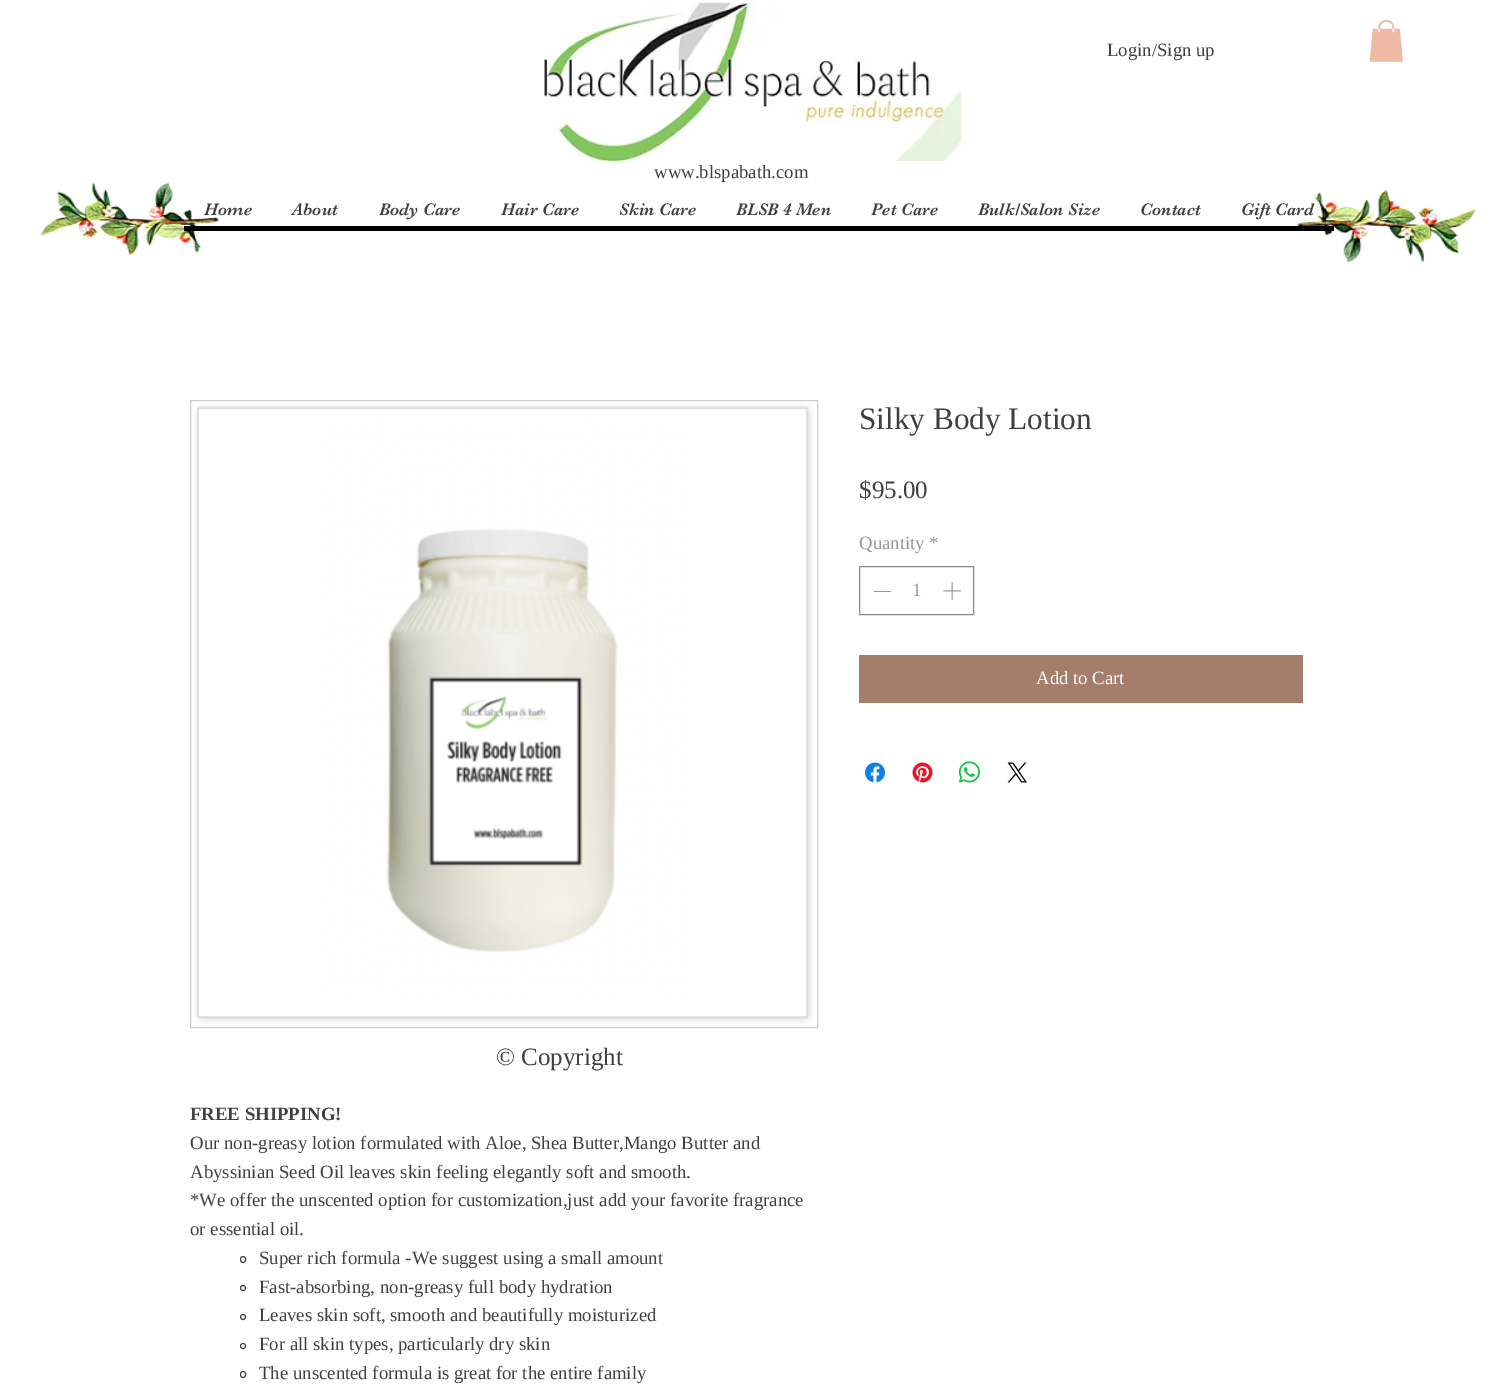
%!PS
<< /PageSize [1492 1395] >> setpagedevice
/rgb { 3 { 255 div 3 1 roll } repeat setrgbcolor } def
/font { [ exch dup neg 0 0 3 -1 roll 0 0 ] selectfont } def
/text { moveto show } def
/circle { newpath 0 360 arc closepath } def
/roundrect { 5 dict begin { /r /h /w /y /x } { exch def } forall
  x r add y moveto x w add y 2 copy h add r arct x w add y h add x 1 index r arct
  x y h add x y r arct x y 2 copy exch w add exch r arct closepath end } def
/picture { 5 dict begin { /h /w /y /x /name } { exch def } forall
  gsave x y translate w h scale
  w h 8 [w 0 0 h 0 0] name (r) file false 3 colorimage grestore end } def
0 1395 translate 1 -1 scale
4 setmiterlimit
255 255 255 rgb
0 0 1492 1395 rectfill
(img_01.rgb) 544 2 417 160 picture
(img_02.rgb) 1369 20 34 42 picture
(img_03.rgb) 40 182 179 73 picture
(img_04.rgb) 1297 190 180 73 picture
0 0 0 rgb
184 226 moveto 0 5 rlineto 1150 0 rlineto 0 -35 rlineto 0 30 rlineto closepath fill
140 140 141 rgb
859.5 566.5 114 48 rectstroke
151 151 151 rgb
874 591 17 1 rectfill
(img_05.rgb) 943 582 18 18 picture
165 125 107 rgb
859 655 444 48 rectfill
(img_06.rgb) 865 762 20 21 picture
(img_07.rgb) 912 762 21 21 picture
(img_08.rgb) 958 761 22 22 picture
(img_09.rgb) 1007 762 20 21 picture
206 206 207 rgb
190.5 400.5 627 627 rectstroke
(img_10.rgb) 193 403 621 621 picture
64 64 65 rgb
240.5 1256.5 5 6 2.5 roundrect stroke
243 1288 2.5 circle stroke
243 1317 2.5 circle stroke
243 1346 2.5 circle stroke
240.5 1371.5 5 6 2.5 roundrect stroke
/LiberationSerif-Regular 18.75 font
(Login/Sign up) 1107 56 text
(www.blspabath.com) 654 178 text
/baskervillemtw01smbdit-Regular 17.5 font
(Home) 204 215 text
(About) 292 215 text
(Body Care) 379 215 text
(Hair Care) 501 215 text
(Skin Care) 619 215 text
(BLSB 4 Men) 736 215 text
(Pet Care) 871 215 text
(Bulk/Salon Size) 978 215 text
(Contact) 1140 215 text
(Gift Card) 1241 215 text
/LiberationSerif-Regular 31.25 font
(Silky Body Lotion) 859 429 text
/LiberationSerif-Regular 25 font
($95.00) 859 498 text
/LiberationSerif-Regular 18.75 font
151 151 151 rgb
(Quantity) 859 549 text
(*) 929 549 text
(1) 912 596 text
255 255 255 rgb
(Add to Cart) 1036 684 text
/LiberationSerif-Bold 18.75 font
64 64 65 rgb
(FREE SHIPPING!) 190 1120 text
/LiberationSerif-Regular 18.75 font
(Our non-greasy lotion formulated with Aloe, Shea Butter,Mango Butter and) 190 1149 text
(Abyssinian Seed Oil leaves skin feeling elegantly soft and smooth.) 190 1178 text
(*We offer the unscented option for customization,just add your favorite fragrance) 190 1206 text
(or essential oil.) 190 1235 text
(Super rich formula -We suggest using a small amount) 259 1264 text
(Fast-absorbing, non-greasy full body hydration) 259 1293 text
(Leaves skin soft, smooth and beautifully moisturized) 259 1321 text
(For all skin types, particularly dry skin) 259 1350 text
(The unscented formula is great for the entire family) 259 1379 text
/LiberationSerif-Regular 25 font
(© Copyright) 496 1065 text
showpage
